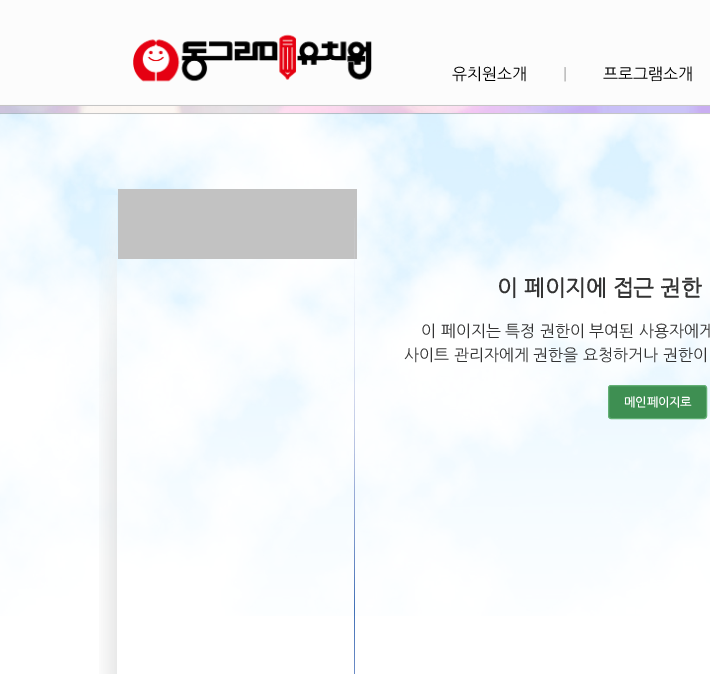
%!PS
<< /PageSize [710 674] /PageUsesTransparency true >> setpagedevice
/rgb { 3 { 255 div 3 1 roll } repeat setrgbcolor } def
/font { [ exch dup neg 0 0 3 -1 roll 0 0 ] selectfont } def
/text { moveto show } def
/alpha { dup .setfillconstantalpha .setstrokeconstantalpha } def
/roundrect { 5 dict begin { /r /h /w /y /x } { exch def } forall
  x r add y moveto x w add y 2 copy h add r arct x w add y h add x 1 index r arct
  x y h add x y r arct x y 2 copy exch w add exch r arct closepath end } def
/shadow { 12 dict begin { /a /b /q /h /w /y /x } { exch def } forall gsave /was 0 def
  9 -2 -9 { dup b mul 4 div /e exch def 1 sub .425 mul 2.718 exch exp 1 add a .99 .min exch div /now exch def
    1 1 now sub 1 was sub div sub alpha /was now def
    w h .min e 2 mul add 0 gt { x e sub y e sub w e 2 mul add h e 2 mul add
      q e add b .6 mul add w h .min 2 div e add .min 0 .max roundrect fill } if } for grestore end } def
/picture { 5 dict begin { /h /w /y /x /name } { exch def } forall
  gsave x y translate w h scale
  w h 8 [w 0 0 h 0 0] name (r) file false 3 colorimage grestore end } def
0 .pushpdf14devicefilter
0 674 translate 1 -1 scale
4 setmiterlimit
255 255 255 rgb
0 0 710 674 rectfill
252 252 252 rgb
0 0 710 106 rectfill
(img_01.rgb) 133 34 239 48 picture
(img_05.rgb) 0 113 710 503 picture
43 43 43 rgb
0 106 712 7 0 0.5 1 shadow
(img_02.rgb) 0 106 710 7 picture
(img_03.rgb) 99 195 18 479 picture
194 194 194 rgb
118 189 239 70 rectfill
(img_04.rgb) 354 218 1 456 picture
62 143 82 rgb
608.5 385.5 98 33 2.5 roundrect gsave fill grestore
99 176 118 rgb
stroke
/NanumGothic-Regular 16 font
0 0 0 rgb
(유치원소개) 452 79 text
172 172 172 rgb
(|) 563 79 text
0 0 0 rgb
(프로그램소개) 603 79 text
/NanumGothic-Bold 22 font
51 51 51 rgb
(이 페이지에 접근 권한) 497 295 text
/NanumGothic-Regular 16 font
(이 페이지는 특정 권한이 부여된 사용자에게) 421 336 text
(사이트 관리자에게 권한을 요청하거나 권한이) 404 360 text
/NanumGothic-Bold 12 font
255 255 255 rgb
(메인페이지로) 624 406 text
.poppdf14devicefilter showpage
